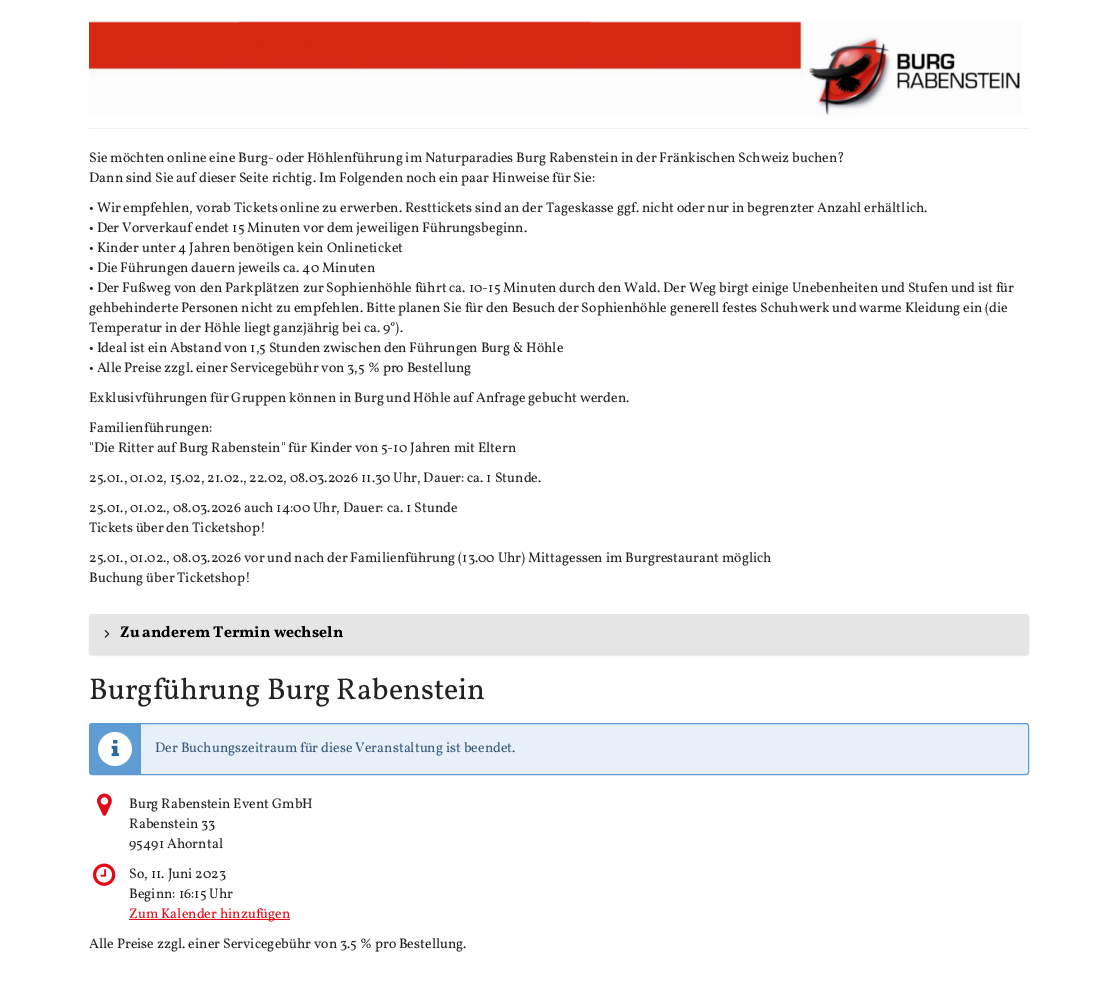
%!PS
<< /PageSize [1117 994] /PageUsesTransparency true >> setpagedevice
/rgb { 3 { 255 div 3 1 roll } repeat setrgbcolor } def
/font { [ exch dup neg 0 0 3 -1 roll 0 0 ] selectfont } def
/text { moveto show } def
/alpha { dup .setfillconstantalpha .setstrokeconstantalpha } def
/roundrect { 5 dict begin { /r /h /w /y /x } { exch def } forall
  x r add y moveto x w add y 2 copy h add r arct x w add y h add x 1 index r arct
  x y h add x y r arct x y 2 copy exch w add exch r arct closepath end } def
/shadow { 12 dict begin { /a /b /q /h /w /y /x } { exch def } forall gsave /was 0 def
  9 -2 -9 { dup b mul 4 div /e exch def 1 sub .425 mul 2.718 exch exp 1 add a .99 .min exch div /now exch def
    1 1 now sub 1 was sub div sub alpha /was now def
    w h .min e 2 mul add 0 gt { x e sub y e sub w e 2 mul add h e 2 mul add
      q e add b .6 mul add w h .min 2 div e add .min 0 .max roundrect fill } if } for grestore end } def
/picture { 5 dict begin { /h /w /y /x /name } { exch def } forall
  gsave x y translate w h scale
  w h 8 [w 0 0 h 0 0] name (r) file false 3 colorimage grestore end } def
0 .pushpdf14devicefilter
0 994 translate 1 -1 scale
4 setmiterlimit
255 255 255 rgb
0 0 1117 994 rectfill
238 238 238 rgb
89 128 940 1 rectfill
(img_01.rgb) 89 21 932 95 picture
0 0 0 rgb
89 615 940 41 3 0.5 0.05 shadow
229 229 229 rgb
89.5 614.5 939 40 2.5 roundrect stroke
90 615 938 39 rectfill
(img_02.rgb) 104 630 6 8 picture
231 240 249 rgb
89.5 723.5 939 51 2.5 roundrect gsave fill grestore
95 156 212 rgb
stroke
90 724 51 50 rectfill
(img_03.rgb) 98 732 34 34 picture
(img_04.rgb) 97 793 15 23 picture
(img_05.rgb) 93 863 23 23 picture
226 10 22 rgb
129 919 161 1 rectfill
/Vollkorn-Regular 14 font
34 34 34 rgb
(Sie möchten online eine Burg- oder Höhlenführung im Naturparadies Burg Rabenstein in der Fränkischen Schweiz buchen?) 89 162 text
(Dann sind Sie auf dieser Seite richtig. Im Folgenden noch ein paar Hinweise für Sie:) 89 182 text
(• Wir empfehlen, vorab Tickets online zu erwerben. Resttickets sind an der Tageskasse ggf. nicht oder nur in begrenzter Anzahl erhältlich.) 89 212 text
(• Der Vorverkauf endet 15 Minuten vor dem jeweiligen Führungsbeginn.) 89 232 text
(• Kinder unter 4 Jahren benötigen kein Onlineticket) 89 252 text
(• Die Führungen dauern jeweils ca. 40 Minuten) 89 272 text
(• Der Fußweg von den Parkplätzen zur Sophienhöhle führt ca. 10-15 Minuten durch den Wald. Der Weg birgt einige Unebenheiten und Stufen und ist für) 89 292 text
(gehbehinderte Personen nicht zu empfehlen. Bitte planen Sie für den Besuch der Sophienhöhle generell festes Schuhwerk und warme Kleidung ein \(die) 89 312 text
(Temperatur in der Höhle liegt ganzjährig bei ca. 9°\).) 89 332 text
(• Ideal ist ein Abstand von 1,5 Stunden zwischen den Führungen Burg & Höhle) 89 352 text
(• Alle Preise zzgl. einer Servicegebühr von 3,5 % pro Bestellung) 89 372 text
(Exklusivführungen für Gruppen können in Burg und Höhle auf Anfrage gebucht werden.) 89 402 text
(Familienführungen:) 89 432 text
("Die Ritter auf Burg Rabenstein" für Kinder von 5-10 Jahren mit Eltern) 89 452 text
(25.01., 01.02, 15.02, 21.02., 22.02, 08.03.2026 11.30 Uhr, Dauer: ca. 1 Stunde.) 89 482 text
(25.01., 01.02., 08.03.2026 auch 14:00 Uhr, Dauer: ca. 1 Stunde) 89 512 text
(Tickets über den Ticketshop!) 89 532 text
(25.01., 01.02., 08.03.2026 vor und nach der Familienführung \(13.00 Uhr\) Mittagessen im Burgrestaurant möglich) 89 562 text
(Buchung über Ticketshop!) 89 582 text
/Vollkorn-Bold 15.75 font
0 0 0 rgb
(Zu anderem Termin wechseln) 120 637 text
/Vollkorn-Regular 30.1 font
34 34 34 rgb
(Burgführung Burg Rabenstein) 89 699 text
/Vollkorn-Regular 14 font
55 90 123 rgb
(Der Buchungszeitraum für diese Veranstaltung ist beendet.) 155 752 text
34 34 34 rgb
(Burg Rabenstein Event GmbH) 129 808 text
(Rabenstein 33) 129 828 text
(95491 Ahorntal) 129 848 text
(So, 11. Juni 2023) 129 878 text
(Beginn: 16:15 Uhr) 129 898 text
226 10 22 rgb
(Zum Kalender hinzufügen) 129 918 text
34 34 34 rgb
(Alle Preise zzgl. einer Servicegebühr von 3.5 % pro Bestellung.) 89 948 text
.poppdf14devicefilter showpage
